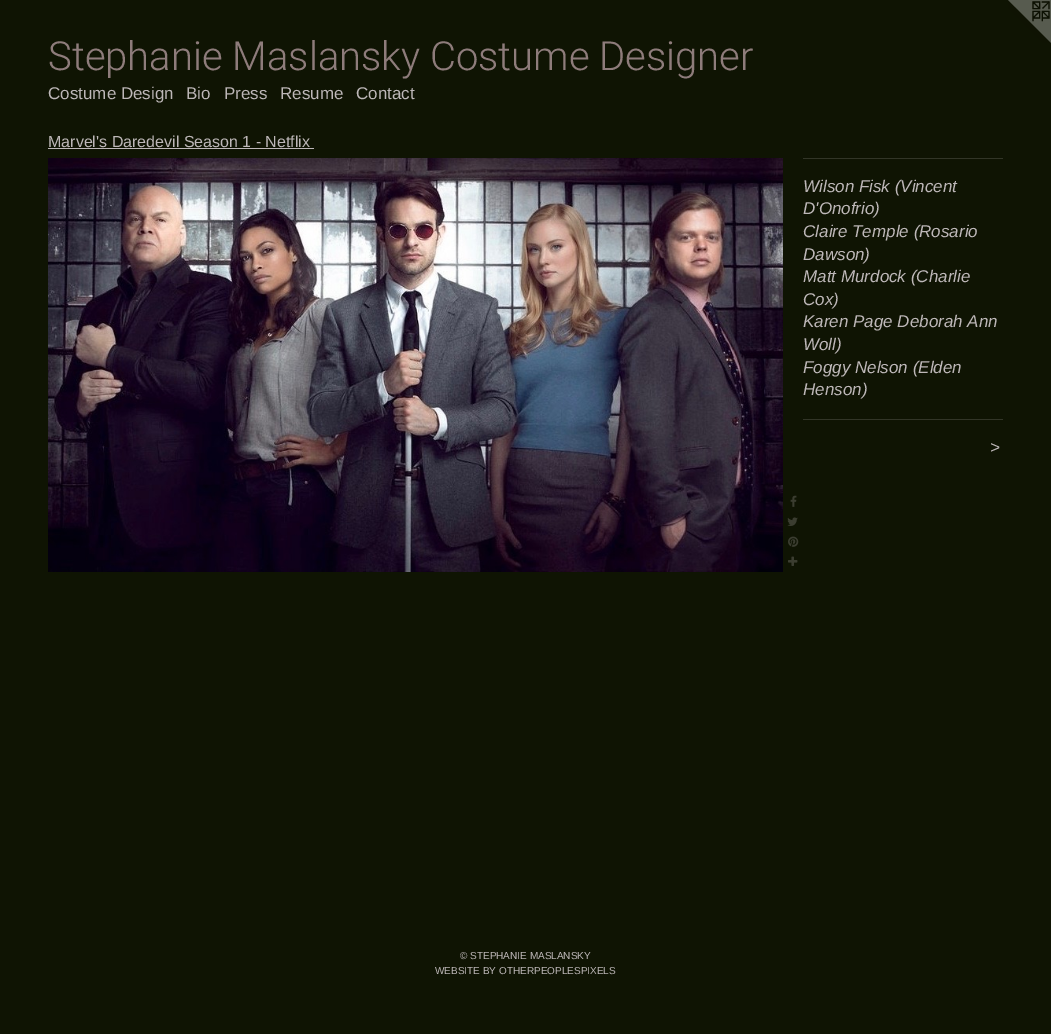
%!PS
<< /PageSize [1051 1034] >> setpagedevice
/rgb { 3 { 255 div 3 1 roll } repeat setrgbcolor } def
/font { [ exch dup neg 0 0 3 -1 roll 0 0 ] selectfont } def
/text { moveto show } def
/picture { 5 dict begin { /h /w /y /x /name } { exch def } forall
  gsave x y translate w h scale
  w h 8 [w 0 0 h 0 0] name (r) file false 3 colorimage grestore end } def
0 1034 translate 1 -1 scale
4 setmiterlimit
15 20 3 rgb
0 0 1051 1034 rectfill
(img_01.rgb) 1008 0 43 43 picture
189 183 184 rgb
48 148 266 1 rectfill
(img_02.rgb) 48 158 735 414 picture
(img_03.rgb) 790 495 7 12 picture
(img_04.rgb) 787 517 11 9 picture
(img_05.rgb) 788 536 11 11 picture
(img_06.rgb) 788 556 10 10 picture
50 53 39 rgb
803 158 200 1 rectfill
803 419 200 1 rectfill
/Roboto-Light 40 font
142 124 123 rgb
(Stephanie Maslansky Costume Designer) 48 70 text
/LiberationSans-Regular 17 font
189 183 184 rgb
(Costume Design) 48 99 text
(Bio) 186 99 text
(Press) 224 99 text
(Resume) 280 99 text
(Contact) 356 99 text
/LiberationSans-Regular 16 font
(Marvel's Daredevil Season 1 - Netflix) 48 147 text
/LiberationSans-Italic 17 font
(Wilson Fisk \(Vincent) 803 192 text
(D'Onofrio\)) 803 214 text
(Claire Temple \(Rosario) 803 237 text
(Dawson\)) 803 260 text
(Matt Murdock \(Charlie) 803 282 text
(Cox\)) 803 305 text
(Karen Page Deborah Ann) 803 327 text
(Woll\)) 803 350 text
(Foggy Nelson \(Elden) 803 373 text
(Henson\)) 803 395 text
990 453 moveto 1 0 (>) ashow
/LiberationSans-Regular 10 font
(© STEPHANIE MASLANSKY) 460 959 text
(WEBSITE BY OTHERPEOPLESPIXELS) 435 974 text
showpage
